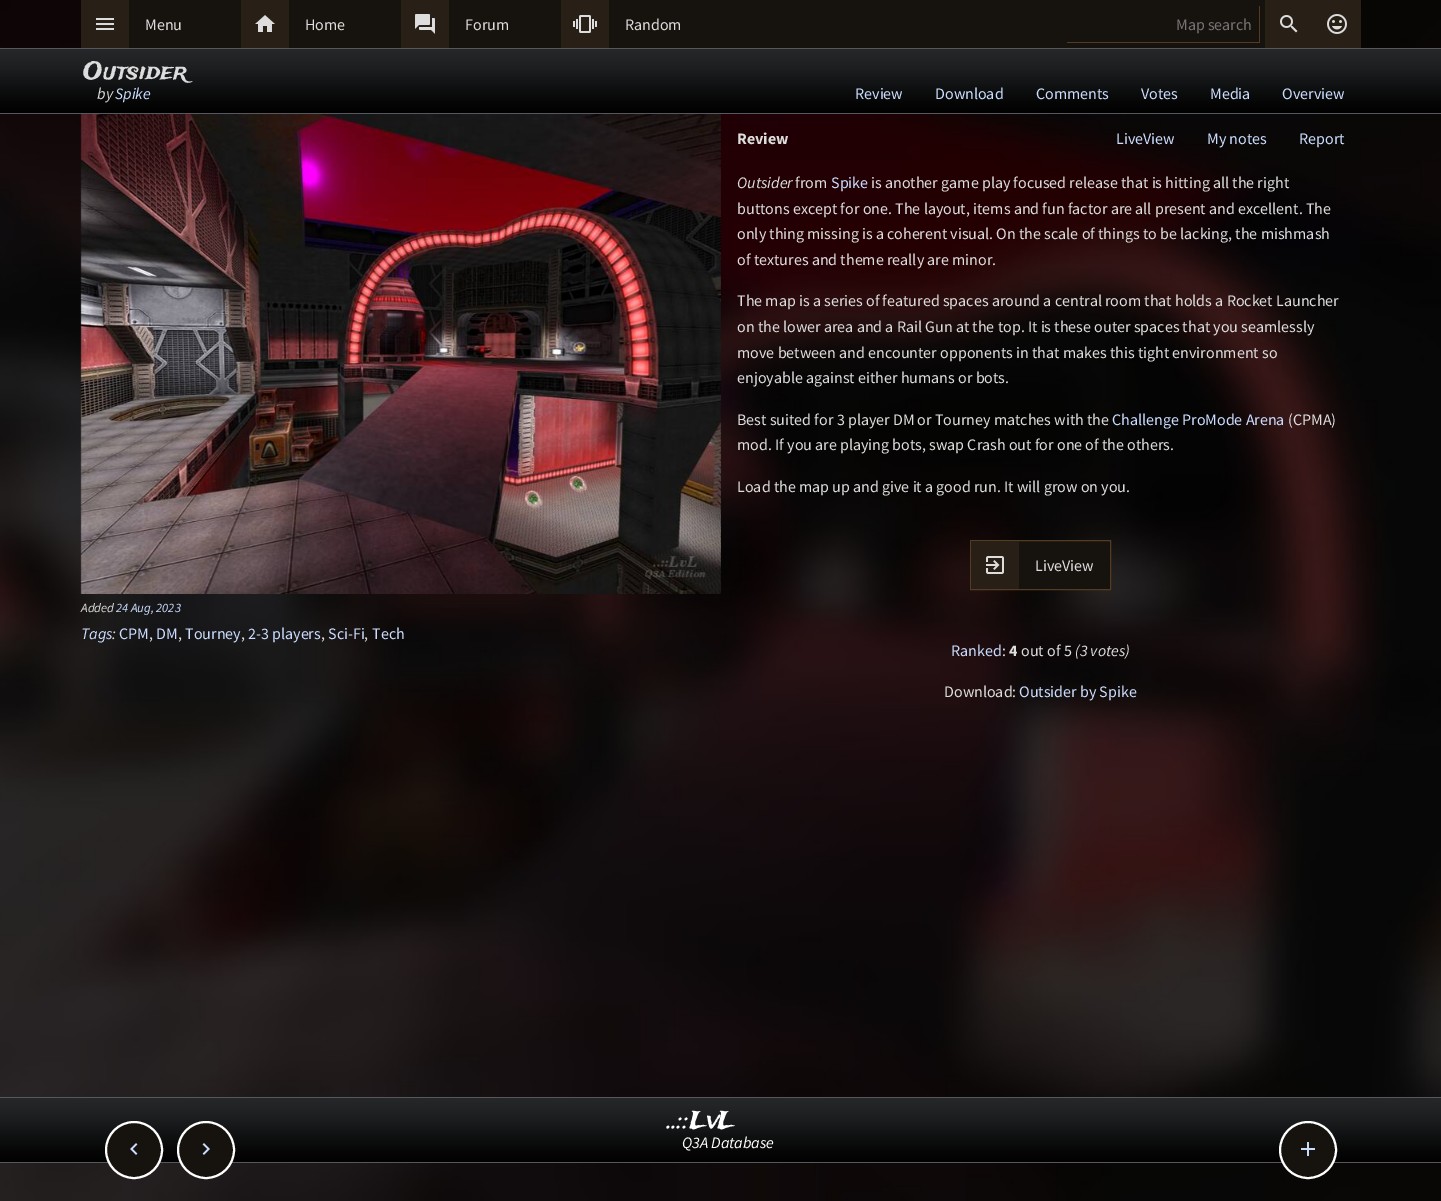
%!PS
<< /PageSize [1441 1201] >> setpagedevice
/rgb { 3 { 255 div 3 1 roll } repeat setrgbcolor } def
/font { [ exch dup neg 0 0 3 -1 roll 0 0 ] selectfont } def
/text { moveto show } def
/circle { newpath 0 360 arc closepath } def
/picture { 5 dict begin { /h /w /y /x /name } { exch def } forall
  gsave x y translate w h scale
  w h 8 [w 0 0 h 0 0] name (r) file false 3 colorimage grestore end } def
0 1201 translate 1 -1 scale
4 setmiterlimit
255 255 255 rgb
0 0 1441 1201 rectfill
(img_01.rgb) 0 0 1441 1201 picture
22 19 15 rgb
129 0 1136 48 rectfill
40 32 22 rgb
81 0 48 48 rectfill
(img_02.rgb) 96 18 18 12 picture
241 0 48 48 rectfill
(img_03.rgb) 255 15 20 17 picture
401 0 48 48 rectfill
(img_04.rgb) 415 14 20 20 picture
561 0 48 48 rectfill
(img_05.rgb) 573 15 24 18 picture
84 60 34 rgb
1259 6 1 37 rectfill
1067 42 193 1 rectfill
40 32 22 rgb
1265 0 96 48 rectfill
(img_06.rgb) 1280 15 18 18 picture
(img_07.rgb) 1327 14 20 20 picture
(img_08.rgb) 0 49 1441 64 picture
86 88 93 rgb
0 48 1441 1 rectfill
0 113 1441 1 rectfill
(img_09.rgb) 80 114 641 480 picture
22 19 15 rgb
1019 541 91 48 rectfill
84 60 34 rgb
970.5 540.5 140 49 rectstroke
40 32 22 rgb
971 541 48 48 rectfill
(img_10.rgb) 986 556 18 18 picture
(img_08.rgb) 0 1098 1441 64 picture
86 88 93 rgb
0 1162 1441 1 rectfill
22 19 15 rgb
134 1150 28 circle gsave fill grestore
255 255 255 rgb
2 setlinewidth
stroke
(img_11.rgb) 130 1143 8 12 picture
22 19 15 rgb
206 1150 28 circle gsave fill grestore
255 255 255 rgb
stroke
(img_12.rgb) 202 1143 8 12 picture
22 19 15 rgb
1308 1150 28 circle gsave fill grestore
255 255 255 rgb
stroke
(img_13.rgb) 1301 1142 14 14 picture
86 88 93 rgb
0 1097 1441 1 rectfill
/SourceSansPro-Regular 16 font
221 221 221 rgb
(Menu) 145 30 text
(Home) 305 30 text
(Forum) 465 30 text
(Random) 625 30 text
117 117 117 rgb
(Map search) 1176 30 text
/TradeWinds-Regular 24 font
221 221 221 rgb
(Outsider) 83 79 text
/SourceSansPro-Italic 16 font
(by) 97 99 text
204 221 255 rgb
(Spike) 115 99 text
/SourceSansPro-Regular 16 font
(Review) 855 99 text
(Download) 935 99 text
(Comments) 1036 99 text
(Votes) 1141 99 text
(Media) 1210 99 text
(Overview) 1282 99 text
/SourceSansPro-Italic 12.75 font
221 221 221 rgb
(Added) 81 612 text
204 221 255 rgb
(24 Aug, 2023) 116 612 text
/SourceSansPro-Italic 16 font
(Tags) 81 639 text
221 221 221 rgb
(:) 112 639 text
/SourceSansPro-Regular 16 font
204 221 255 rgb
(CPM) 119 639 text
221 221 221 rgb
(,) 149 639 text
204 221 255 rgb
(DM) 156 639 text
221 221 221 rgb
(,) 178 639 text
204 221 255 rgb
(Tourney) 185 639 text
221 221 221 rgb
(,) 241 639 text
204 221 255 rgb
(2-3 players) 248 639 text
221 221 221 rgb
(,) 321 639 text
204 221 255 rgb
(Sci-Fi) 328 639 text
221 221 221 rgb
(,) 364 639 text
204 221 255 rgb
(Tech) 372 639 text
/SourceSansPro-Bold 16 font
221 221 221 rgb
(Review) 737 144 text
/SourceSansPro-Regular 16 font
204 221 255 rgb
(LiveView) 1116 144 text
(My notes) 1207 144 text
(Report) 1299 144 text
/SourceSansPro-Italic 16 font
221 221 221 rgb
(Outsider) 737 188 text
/SourceSansPro-Regular 16 font
(from) 795 188 text
204 221 255 rgb
(Spike) 831 188 text
221 221 221 rgb
(is another game play focused release that is hitting all the right) 871 188 text
(buttons except for one. The layout, items and fun factor are all present and excellent. The) 737 214 text
(only thing missing is a coherent visual. On the scale of things to be lacking, the mishmash) 737 239 text
(of textures and theme really are minor.) 737 265 text
(The map is a series of featured spaces around a central room that holds a Rocket Launcher) 737 306 text
(on the lower area and a Rail Gun at the top. It is these outer spaces that you seamlessly) 737 332 text
(move between and encounter opponents in that makes this tight environment so) 737 358 text
(enjoyable against either humans or bots.) 737 383 text
(Best suited for 3 player DM or Tourney matches with the) 737 425 text
204 221 255 rgb
(Challenge ProMode Arena) 1112 425 text
221 221 221 rgb
(\(CPMA\)) 1288 425 text
(mod. If you are playing bots, swap Crash out for one of the others.) 737 450 text
(Load the map up and give it a good run. It will grow on you.) 737 492 text
(LiveView) 1035 571 text
204 221 255 rgb
(Ranked) 951 656 text
221 221 221 rgb
(:) 1002 656 text
/SourceSansPro-Bold 16 font
(4) 1009 656 text
/SourceSansPro-Regular 16 font
(out of 5) 1021 656 text
/SourceSansPro-Italic 16 font
(\(3 votes\)) 1075 656 text
/SourceSansPro-Regular 16 font
(Download:) 944 697 text
204 221 255 rgb
(Outsider by Spike) 1019 697 text
/TradeWinds-Regular 24 font
255 255 255 rgb
(..::LvL) 668 1128 text
/SourceSansPro-Italic 16 font
(Q3A Database) 682 1148 text
showpage
